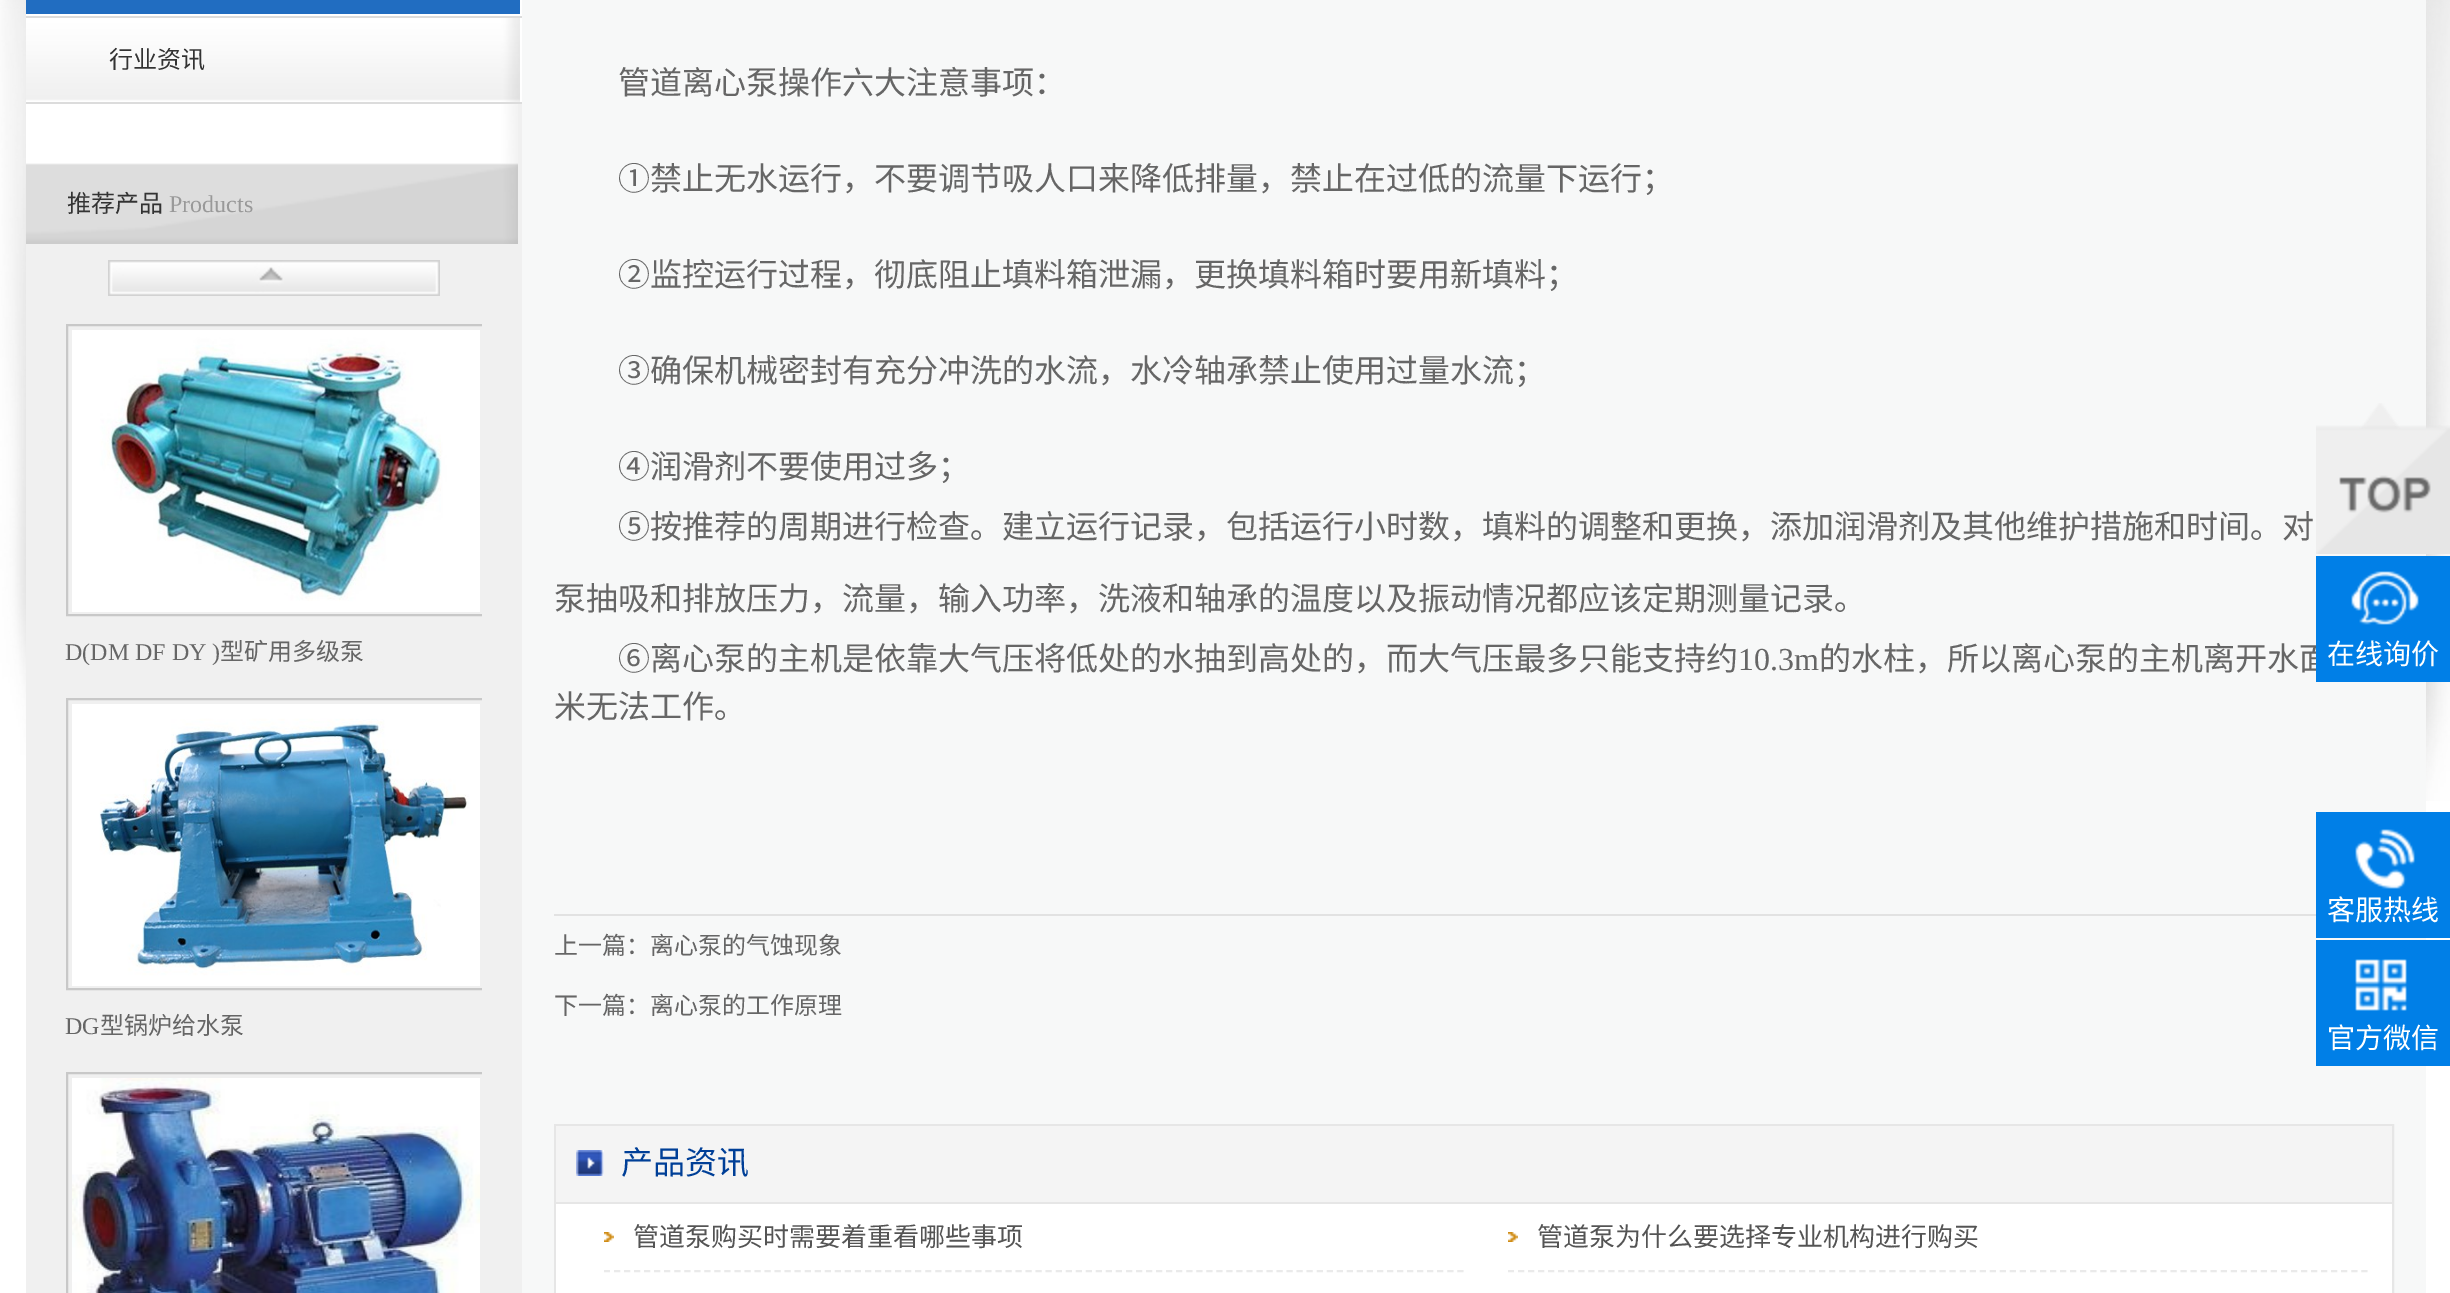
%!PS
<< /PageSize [2450 1293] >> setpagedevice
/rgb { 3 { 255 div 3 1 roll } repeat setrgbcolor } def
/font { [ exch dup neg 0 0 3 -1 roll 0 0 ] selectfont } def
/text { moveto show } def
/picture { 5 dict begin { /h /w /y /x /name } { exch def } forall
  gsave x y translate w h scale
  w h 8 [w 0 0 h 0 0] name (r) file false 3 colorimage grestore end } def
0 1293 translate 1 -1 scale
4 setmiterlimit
255 255 255 rgb
0 0 2450 1293 rectfill
(img_01.rgb) 0 0 2450 801 picture
26 0 7 102 rectfill
220 220 220 rgb
26 16 496 2 rectfill
33 109 193 rgb
26 0 494 14 rectfill
220 220 220 rgb
26 102 496 2 rectfill
(img_02.rgb) 26 18 494 84 picture
240 240 240 rgb
26 104 496 1189 rectfill
(img_03.rgb) 26 104 492 140 picture
(img_04.rgb) 108 260 332 36 picture
gsave
66 324 416 346 rectclip
200 200 200 rgb
2 setlinewidth
67 325 418 290 rectstroke
grestore
(img_05.rgb) 72 330 408 282 picture
gsave
66 698 416 346 rectclip
200 200 200 rgb
2 setlinewidth
67 699 418 290 rectstroke
grestore
(img_06.rgb) 72 704 408 282 picture
gsave
66 1072 416 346 rectclip
200 200 200 rgb
2 setlinewidth
67 1073 418 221 rectstroke
grestore
(img_07.rgb) 72 1078 408 215 picture
247 248 248 rgb
522 0 1904 1293 rectfill
226 226 226 rgb
554 914 1762 2 rectfill
230 230 230 rgb
2 setlinewidth
555 1125 1838 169 rectstroke
244 244 244 rgb
556 1126 1836 76 rectfill
230 230 230 rgb
556 1202 1836 2 rectfill
(img_08.rgb) 576 1150 28 26 picture
255 255 255 rgb
556 1204 1836 89 rectfill
234 234 234 rgb
[6 4.04] 0 setdash
604 1271 moveto 860 0 rlineto stroke
(img_09.rgb) 604 1232 10 10 picture
1508 1271 moveto 860 0 rlineto stroke
(img_10.rgb) 1508 1232 10 10 picture
(img_11.rgb) 2316 403 134 151 picture
0 127 231 rgb
2316 812 134 126 rectfill
(img_13.rgb) 2355 829 60 60 picture
2316 940 134 126 rectfill
(img_14.rgb) 2355 959 52 52 picture
/NotoSansCJKSC-Regular 24 font
51 51 51 rgb
(行业资讯) 109 68 text
(推荐产品) 67 212 text
/LiberationSerif-Regular 24 font
153 153 153 rgb
(Products) 169 212 text
102 102 102 rgb
(D\(DM DF DY \)) 65 660 text
/NotoSansCJKSC-Regular 24 font
(型矿用多级泵) 220 660 text
/LiberationSerif-Regular 24 font
(DG) 65 1034 text
/NotoSansCJKSC-Regular 24 font
(型锅炉给水泵) 100 1034 text
/NotoSansCJKSC-Regular 32 font
(管道离心泵操作六大注意事项：) 618 94 text
(①禁止无水运行，不要调节吸人口来降低排量，禁止在过低的流量下运行；) 618 190 text
(②监控运行过程，彻底阻止填料箱泄漏，更换填料箱时要用新填料；) 618 286 text
(③确保机械密封有充分冲洗的水流，水冷轴承禁止使用过量水流；) 618 382 text
(④润滑剂不要使用过多；) 618 478 text
(⑤按推荐的周期进行检查。建立运行记录，包括运行小时数，填料的调整和更换，添加润滑剂及其他维护措施和时间。对) 618 538 text
(泵抽吸和排放压力，流量，输入功率，洗液和轴承的温度以及振动情况都应该定期测量记录。) 554 610 text
(⑥离心泵的主机是依靠大气压将低处的水抽到高处的，而大气压最多只能支持约) 618 670 text
/LiberationSerif-Regular 32 font
(10.3m) 1738 670 text
/NotoSansCJKSC-Regular 32 font
(的水柱，所以离心泵的主机离开水面) 1819 670 text
(米无法工作。) 554 718 text
/NotoSansCJKSC-Regular 24 font
(上一篇：离心泵的气蚀现象) 554 954 text
(下一篇：离心泵的工作原理) 554 1014 text
/NotoSansCJKSC-Regular 32 font
0 63 151 rgb
(产品资讯) 621 1174 text
/NotoSansCJKSC-Regular 26 font
84 84 84 rgb
(管道泵购买时需要着重看哪些事项) 633 1246 text
(管道泵为什么要选择专业机构进行购买) 1537 1246 text
0 127 231 rgb
2316 556 134 126 rectfill
(img_12.rgb) 2351 571 68 54 picture
/NotoSansCJKSC-Regular 28 font
255 255 255 rgb
(在线询价) 2327 664 text
(客服热线) 2327 920 text
(官方微信) 2327 1048 text
showpage
